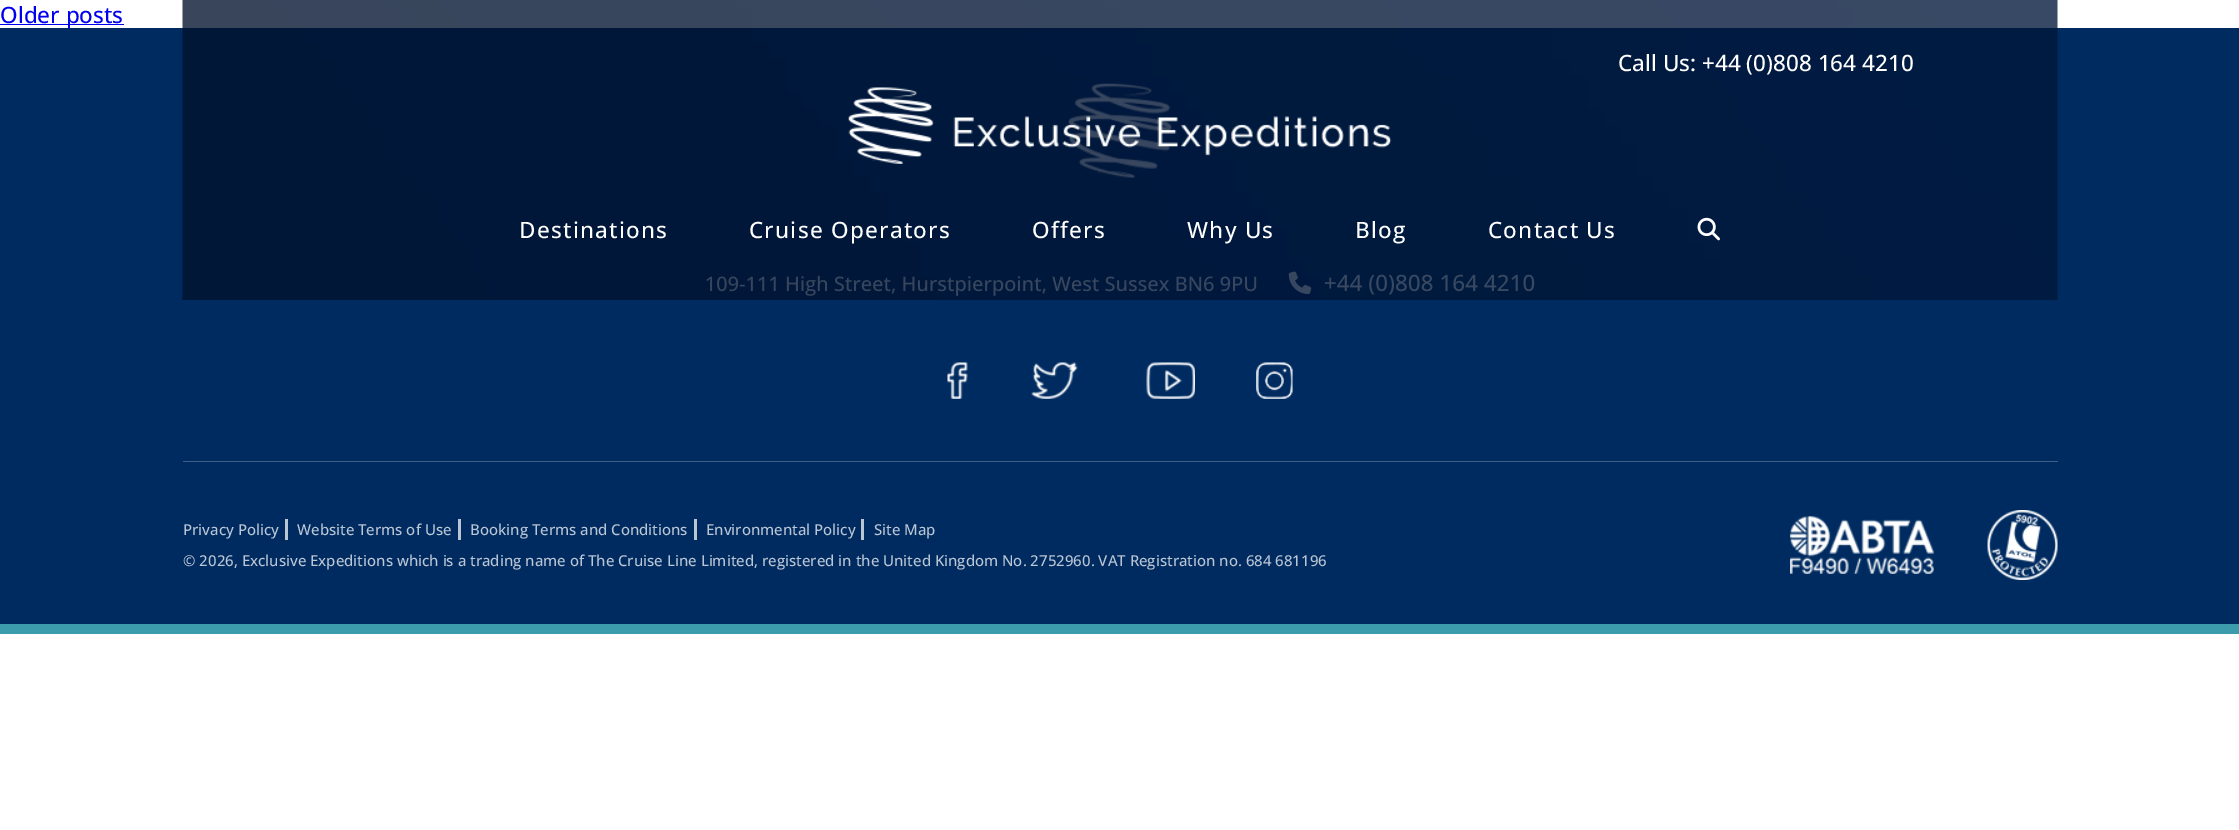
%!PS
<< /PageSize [2239 830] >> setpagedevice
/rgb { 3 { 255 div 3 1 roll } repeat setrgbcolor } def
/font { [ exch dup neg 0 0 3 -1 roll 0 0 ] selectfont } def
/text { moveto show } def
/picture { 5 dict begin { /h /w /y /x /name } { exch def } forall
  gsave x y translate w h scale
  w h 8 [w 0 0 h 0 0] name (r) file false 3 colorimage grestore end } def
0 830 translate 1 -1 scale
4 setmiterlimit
255 255 255 rgb
0 0 2239 830 rectfill
0 0 238 rgb
0 24 124 1 rectfill
0 43 96 rgb
0 28 2239 596 rectfill
(img_04.rgb) 1068 83 104 95 picture
(img_05.rgb) 1288 271 24 24 picture
(img_01.rgb) 182 0 1876 300 picture
(img_02.rgb) 848 87 544 77 picture
(img_03.rgb) 1697 217 23 24 picture
60 156 171 rgb
0 624 2239 10 rectfill
64 96 136 rgb
183 461 1875 1 rectfill
(img_06.rgb) 947 362 21 37 picture
(img_07.rgb) 1031 362 47 37 picture
(img_08.rgb) 1146 362 49 37 picture
(img_09.rgb) 1256 362 37 37 picture
187 198 213 rgb
285 519 3 21 rectfill
458 519 3 21 rectfill
694 519 3 21 rectfill
861 519 3 21 rectfill
(img_10.rgb) 1790 516 144 58 picture
(img_11.rgb) 1987 510 71 70 picture
/OpenSans-Medium 22.5 font
0 0 238 rgb
(Older posts) 0 23 text
255 255 255 rgb
(Call Us: +44 \(0\)808 164 4210) 1618 71 text
519 238 moveto 1.25 0 (Destinations) ashow
749 238 moveto 1.25 0 (Cruise Operators) ashow
1032 238 moveto 1.25 0 (Offers) ashow
1187 238 moveto 1.25 0 (Why Us) ashow
1355 238 moveto 1.25 0 (Blog) ashow
1488 238 moveto 1.25 0 (Contact Us) ashow
/OpenSans-Medium 15 font
187 198 213 rgb
(Privacy Policy) 183 535 text
(Website Terms of Use) 297 535 text
(Booking Terms and Conditions) 470 535 text
(Environmental Policy) 706 535 text
(Site Map) 874 535 text
(© 2026, Exclusive Expeditions which is a trading name of The Cruise Line Limited, registered in the United Kingdom No. 2752960. VAT Registration no. 684 681196) 183 566 text
showpage
